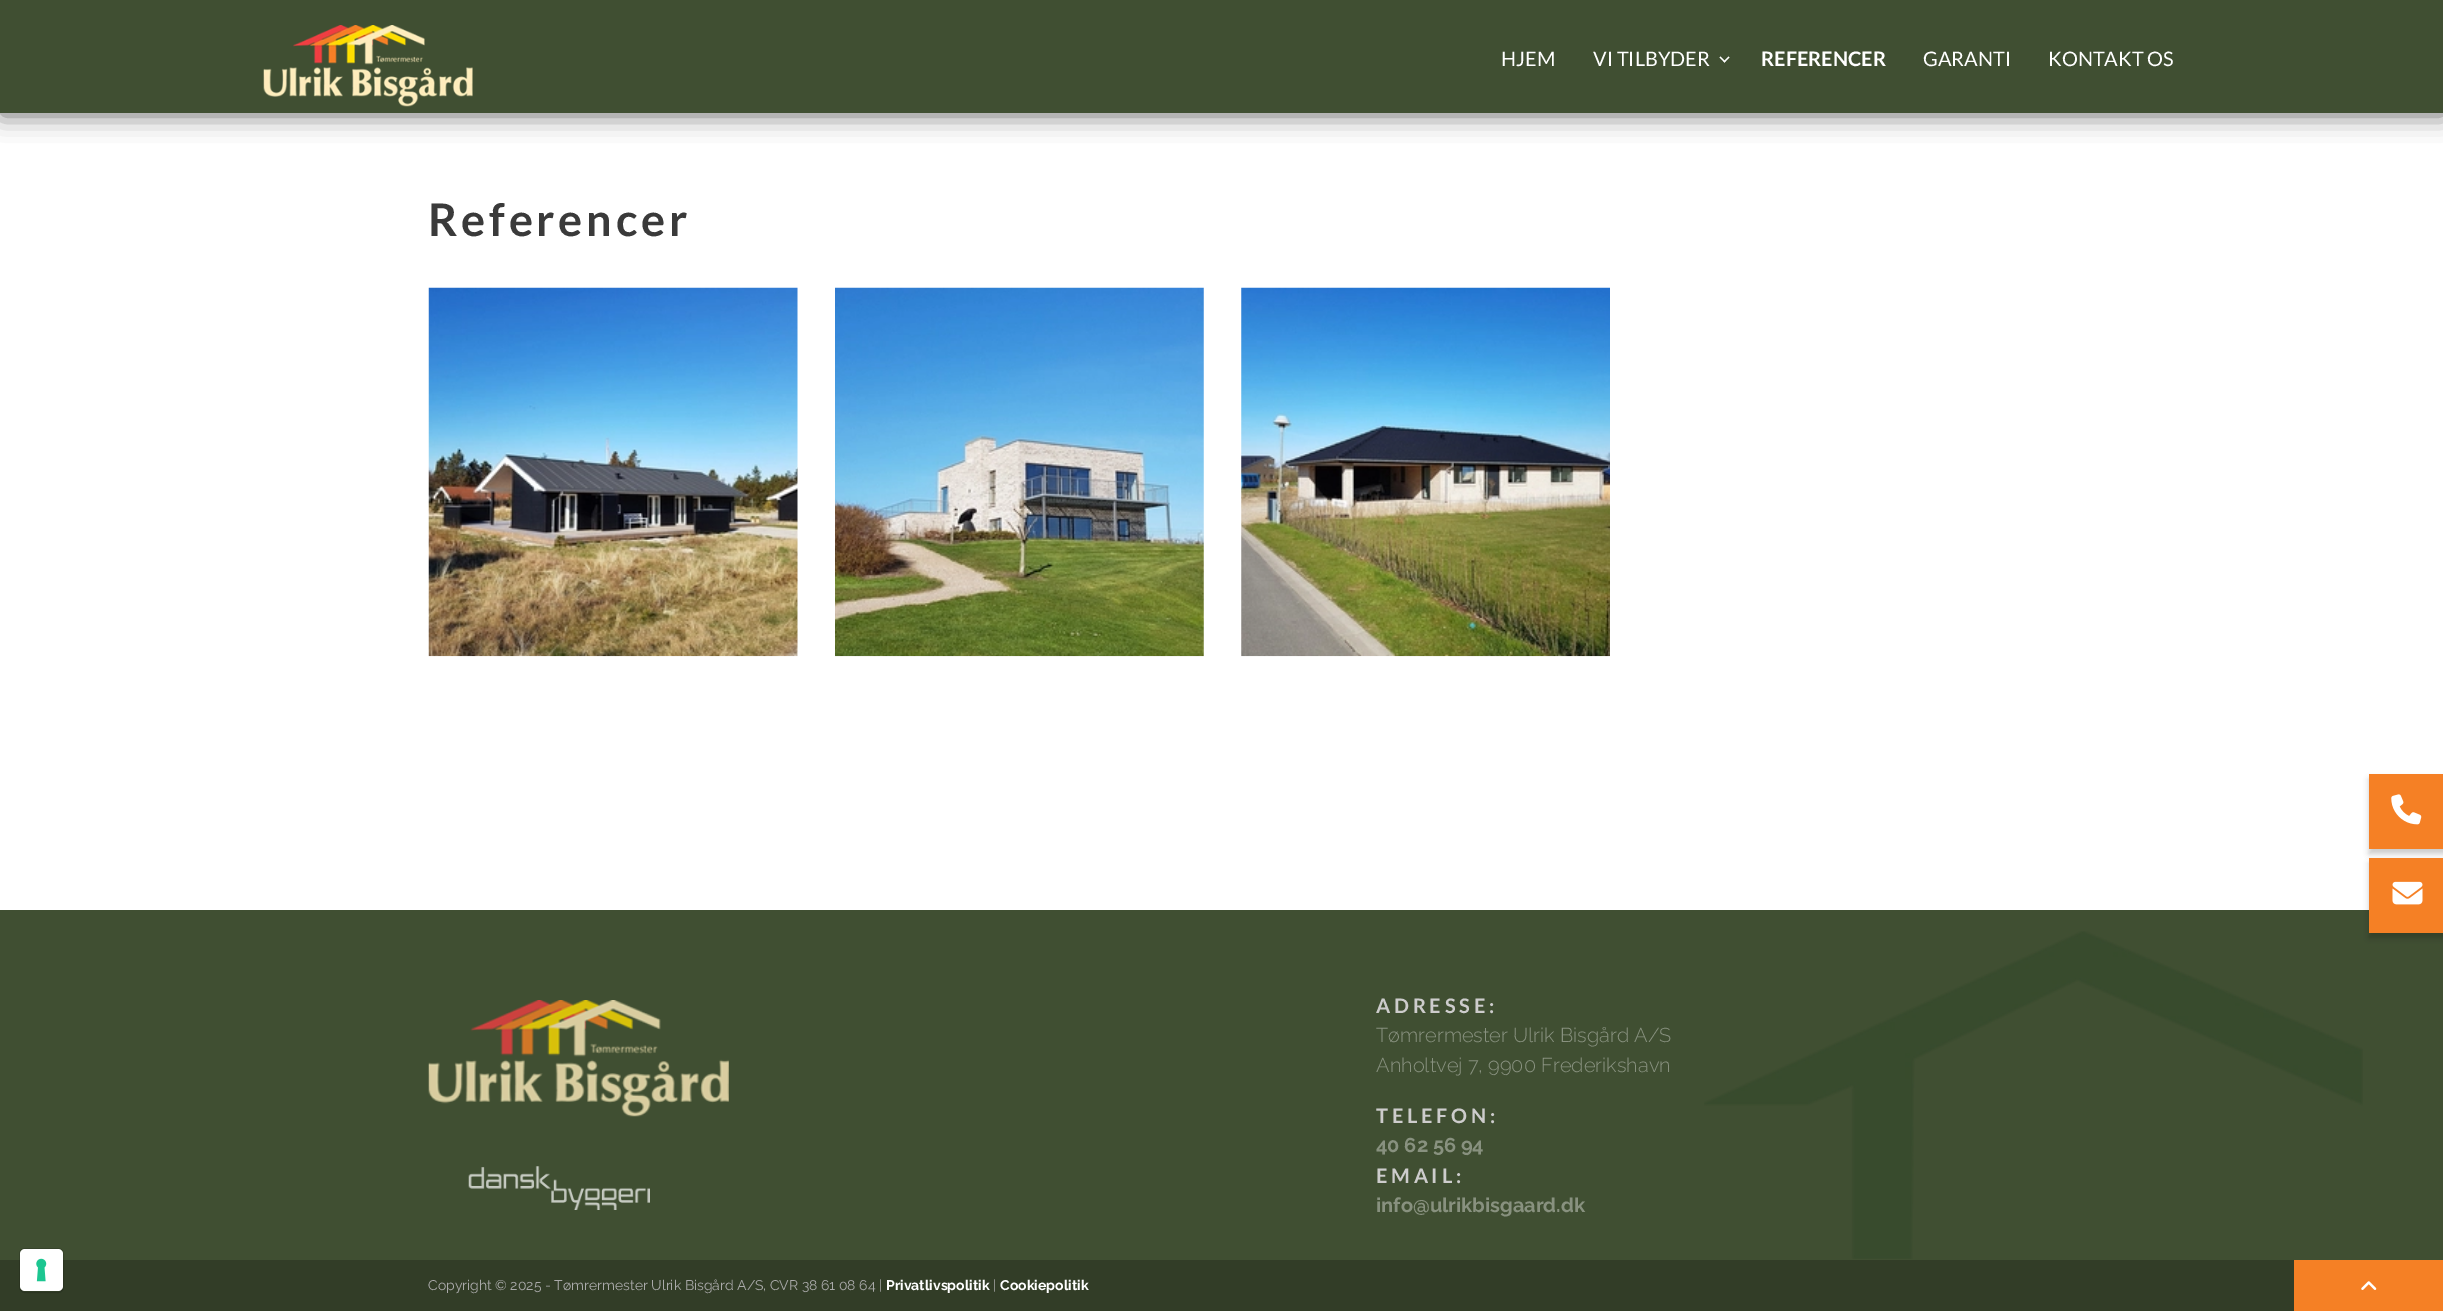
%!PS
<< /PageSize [2443 1311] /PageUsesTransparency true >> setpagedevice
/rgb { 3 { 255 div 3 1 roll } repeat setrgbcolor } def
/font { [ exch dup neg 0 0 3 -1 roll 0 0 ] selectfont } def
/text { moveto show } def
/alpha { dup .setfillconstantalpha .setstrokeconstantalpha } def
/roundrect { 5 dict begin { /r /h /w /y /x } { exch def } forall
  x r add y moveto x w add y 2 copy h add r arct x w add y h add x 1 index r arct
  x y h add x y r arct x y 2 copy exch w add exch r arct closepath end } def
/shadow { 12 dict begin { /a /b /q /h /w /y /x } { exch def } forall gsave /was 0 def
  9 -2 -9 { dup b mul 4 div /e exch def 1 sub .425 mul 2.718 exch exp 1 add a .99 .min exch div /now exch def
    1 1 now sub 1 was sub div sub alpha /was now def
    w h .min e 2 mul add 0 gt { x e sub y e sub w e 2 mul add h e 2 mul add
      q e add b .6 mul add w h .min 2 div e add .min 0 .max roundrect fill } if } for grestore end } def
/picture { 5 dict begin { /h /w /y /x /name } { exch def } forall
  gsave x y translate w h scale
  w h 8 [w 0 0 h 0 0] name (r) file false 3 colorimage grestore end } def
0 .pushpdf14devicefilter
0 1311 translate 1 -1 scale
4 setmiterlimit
255 255 255 rgb
0 0 2443 1311 rectfill
64 79 50 rgb
0 910 2443 350 rectfill
50 61 39 rgb
0 1260 2294 51 rectfill
0.15 alpha
0 0 0 rgb
19.5 1248.5 44 44 5.5 roundrect stroke
1 alpha
255 255 255 rgb
20 1249 43 42 5 roundrect fill
(img_01.rgb) 36 1258 11 24 picture
0 0 0 rgb
1 3 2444 112 0 12.5 0.6 shadow
64 79 50 rgb
0 0 2443 113 rectfill
(img_02.rgb) 263 25 210 82 picture
255 255 255 rgb
1729.5 57.5 moveto -5 5 rlineto -1 -1 rlineto 5 -5 rlineto closepath fill
1725.5 61.5 moveto -1 1 rlineto -5 -5 rlineto 1 -1 rlineto closepath fill
(img_03.rgb) 428 287 370 370 picture
(img_04.rgb) 835 287 369 370 picture
(img_05.rgb) 1241 287 369 370 picture
0 0 0 rgb
2369 779 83 75 0 3 0.2 shadow
245 128 37 rgb
2369 774 74 75 rectfill
(img_06.rgb) 2391 794 31 31 picture
(img_08.rgb) 1704 931 659 328 picture
0 0 0 rgb
2369 863 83 75 0 3 0.2 shadow
245 128 37 rgb
2369 858 74 75 rectfill
(img_07.rgb) 2392 881 31 24 picture
(img_09.rgb) 428 1000 301 117 picture
(img_10.rgb) 468 1166 182 44 picture
2294 1260 149 51 rectfill
(img_11.rgb) 2361 1281 16 9 picture
/Lato-Regular 20 font
255 255 255 rgb
(HJEM) 1501 66 text
(VI TILBYDER) 1593 66 text
/Lato-Bold 20 font
(REFERENCER) 1761 66 text
/Lato-Regular 20 font
(GARANTI) 1923 66 text
(KONTAKT OS) 2048 66 text
/Lato-Bold 45 font
58 58 58 rgb
428 236 moveto 3.75 0 (Referencer) ashow
/Lato-Bold 20 font
205 204 204 rgb
1376 1013 moveto 3.75 0 (ADRESSE:) ashow
/Raleway-Light 20 font
136 145 127 rgb
(Tømrermester Ulrik Bisgård A/S) 1376 1042 text
(Anholtvej 7, 9900 Frederikshavn) 1376 1072 text
/Lato-Bold 20 font
205 204 204 rgb
1376 1123 moveto 3.75 0 (TELEFON:) ashow
/Raleway-Bold 20 font
136 145 127 rgb
(40 62 56 94) 1376 1152 text
/Lato-Bold 20 font
205 204 204 rgb
1376 1183 moveto 3.75 0 (EMAIL:) ashow
/Raleway-Bold 20 font
136 145 127 rgb
(info@ulrikbisgaard.dk) 1376 1212 text
/Raleway-Regular 14 font
170 170 170 rgb
(Copyright © 2025 - Tømrermester Ulrik Bisgård A/S) 428 1290 text
(, CVR 38 61 08 64 |) 763 1290 text
/Raleway-Bold 14 font
255 255 255 rgb
(Privatlivspolitik) 886 1290 text
/Raleway-Regular 14 font
170 170 170 rgb
(|) 993 1290 text
/Raleway-Bold 14 font
255 255 255 rgb
(Cookiepolitik) 1000 1290 text
.poppdf14devicefilter showpage
